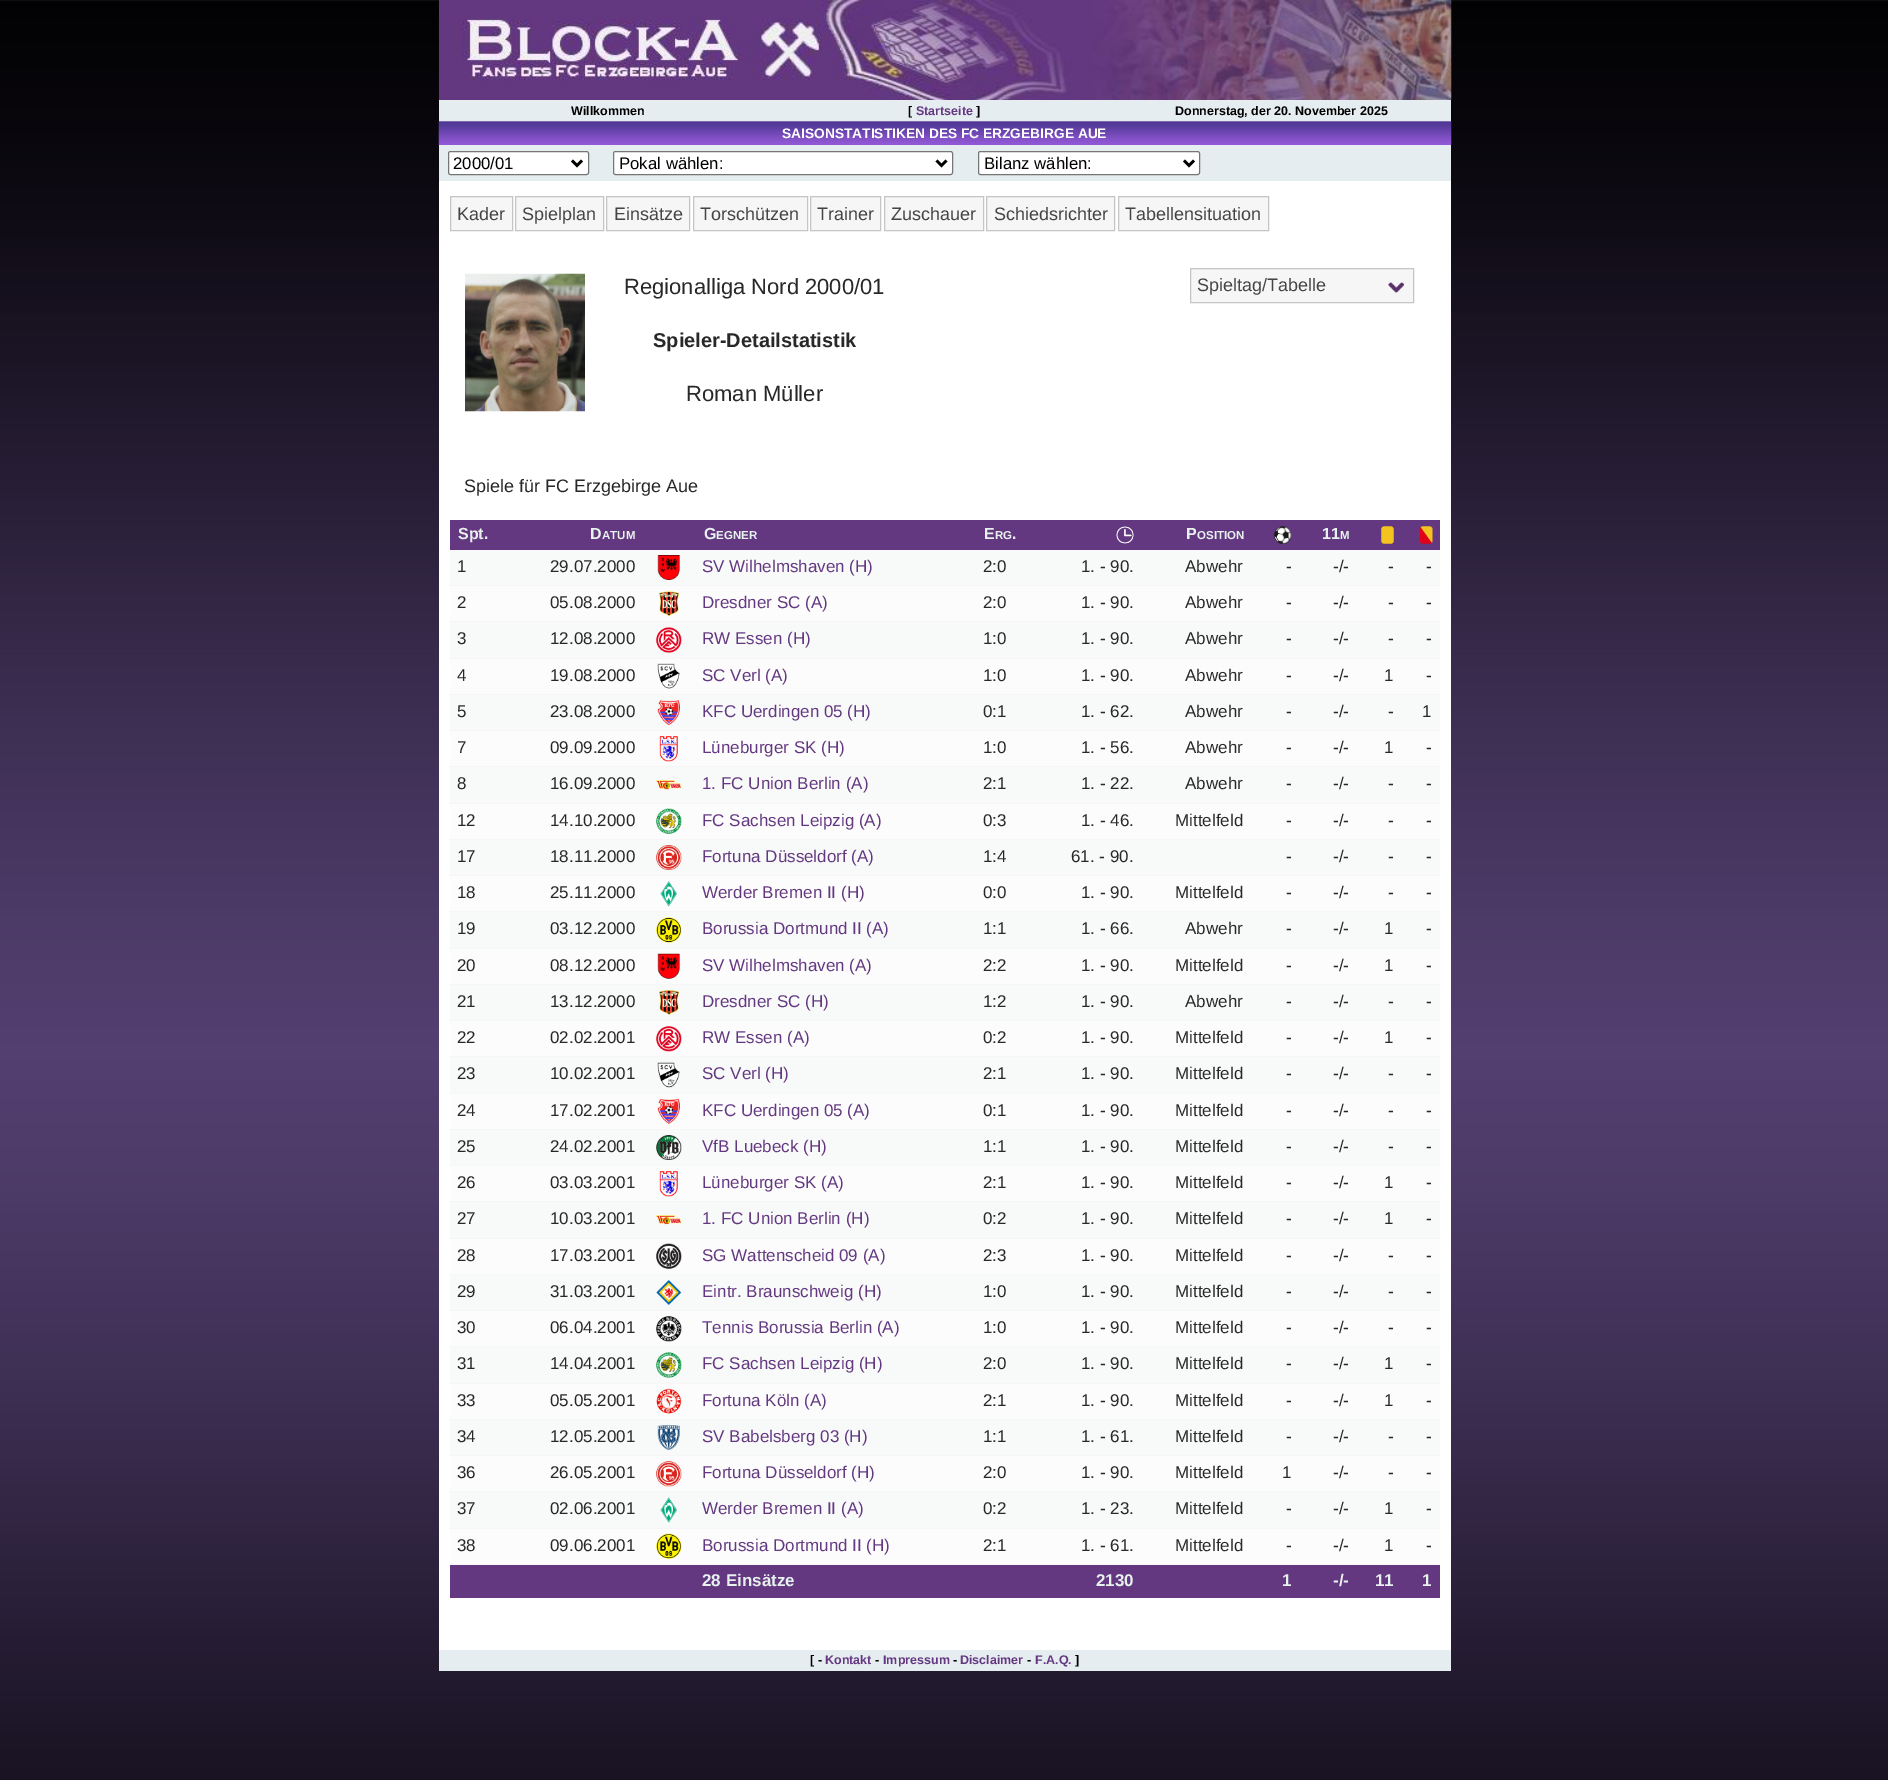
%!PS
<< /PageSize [1888 1780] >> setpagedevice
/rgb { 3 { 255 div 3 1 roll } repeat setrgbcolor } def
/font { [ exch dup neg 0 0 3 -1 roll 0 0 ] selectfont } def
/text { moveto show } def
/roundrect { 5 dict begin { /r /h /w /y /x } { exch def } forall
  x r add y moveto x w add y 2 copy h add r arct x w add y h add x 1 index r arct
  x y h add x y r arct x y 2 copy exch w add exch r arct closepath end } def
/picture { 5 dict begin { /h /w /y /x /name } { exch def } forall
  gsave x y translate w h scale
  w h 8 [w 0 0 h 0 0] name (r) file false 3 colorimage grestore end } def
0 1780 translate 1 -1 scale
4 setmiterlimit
255 255 255 rgb
0 0 1888 1780 rectfill
(img_01.rgb) 0 0 1888 1780 picture
100 56 129 rgb
439 0 17 100 rectfill
(img_02.rgb) 456 0 996 100 picture
230 237 241 rgb
439 100 1012 21 rectfill
255 255 255 rgb
439 121 1012 1529 rectfill
(img_03.rgb) 438 121 1014 24 picture
230 237 241 rgb
439 145 1012 36 rectfill
255 255 255 rgb
448.5 151.5 140 23 2 roundrect gsave fill grestore
118 118 118 rgb
stroke
0 0 0 rgb
2.5 setlinewidth
572 160.5 moveto 5 5 rlineto 5 -5 rlineto stroke
255 255 255 rgb
613.5 151.5 339 23 2 roundrect gsave fill grestore
118 118 118 rgb
1 setlinewidth
stroke
0 0 0 rgb
2.5 setlinewidth
936.5 160.5 moveto 5 5 rlineto 5 -5 rlineto stroke
255 255 255 rgb
978.5 151.5 221 23 2 roundrect gsave fill grestore
118 118 118 rgb
1 setlinewidth
stroke
0 0 0 rgb
2.5 setlinewidth
1184 160.5 moveto 5 5 rlineto 5 -5 rlineto stroke
246 246 246 rgb
450.5 196.5 moveto 62 0 rlineto 0 34 rlineto -62 0 rlineto closepath gsave fill grestore
197 197 197 rgb
1 setlinewidth
stroke
246 246 246 rgb
515.5 196.5 moveto 88 0 rlineto 0 34 rlineto -88 0 rlineto closepath gsave fill grestore
197 197 197 rgb
stroke
246 246 246 rgb
606.5 196.5 moveto 83 0 rlineto 0 34 rlineto -83 0 rlineto closepath gsave fill grestore
197 197 197 rgb
stroke
246 246 246 rgb
693.5 196.5 moveto 114 0 rlineto 0 34 rlineto -114 0 rlineto closepath gsave fill grestore
197 197 197 rgb
stroke
246 246 246 rgb
810.5 196.5 moveto 70 0 rlineto 0 34 rlineto -70 0 rlineto closepath gsave fill grestore
197 197 197 rgb
stroke
246 246 246 rgb
884.5 196.5 moveto 99 0 rlineto 0 34 rlineto -99 0 rlineto closepath gsave fill grestore
197 197 197 rgb
stroke
246 246 246 rgb
986.5 196.5 moveto 128 0 rlineto 0 34 rlineto -128 0 rlineto closepath gsave fill grestore
197 197 197 rgb
stroke
246 246 246 rgb
1118.5 196.5 moveto 150 0 rlineto 0 34 rlineto -150 0 rlineto closepath gsave fill grestore
197 197 197 rgb
stroke
246 246 246 rgb
1190.5 268.5 moveto 223 0 rlineto 0 34 rlineto -223 0 rlineto closepath gsave fill grestore
197 197 197 rgb
stroke
(img_04.rgb) 1388 282 16 11 picture
(img_05.rgb) 465 273 120 139 picture
100 56 129 rgb
450 520 990 30 rectfill
(img_06.rgb) 1116 526 18 18 picture
(img_07.rgb) 1274 526 18 18 picture
(img_08.rgb) 1381 526 13 18 picture
(img_09.rgb) 1420 526 13 18 picture
248 249 249 rgb
450 550 990 35 rectfill
246 246 246 rgb
449 585 991 1 rectfill
(img_10.rgb) 657 555 23 25 picture
252 252 252 rgb
450 586 990 35 rectfill
246 246 246 rgb
449 621 991 1 rectfill
(img_11.rgb) 659 591 21 26 picture
248 249 249 rgb
450 622 990 36 rectfill
246 246 246 rgb
449 658 991 1 rectfill
(img_12.rgb) 656 627 26 26 picture
252 252 252 rgb
450 659 990 35 rectfill
246 246 246 rgb
449 694 991 1 rectfill
(img_13.rgb) 657 663 23 26 picture
248 249 249 rgb
450 695 990 35 rectfill
246 246 246 rgb
449 730 991 1 rectfill
(img_14.rgb) 657 700 23 25 picture
252 252 252 rgb
450 731 990 35 rectfill
246 246 246 rgb
449 766 991 1 rectfill
(img_15.rgb) 659 736 19 26 picture
248 249 249 rgb
450 767 990 36 rectfill
246 246 246 rgb
449 803 991 1 rectfill
(img_16.rgb) 656 780 26 10 picture
252 252 252 rgb
450 804 990 35 rectfill
246 246 246 rgb
449 839 991 1 rectfill
(img_17.rgb) 656 808 26 26 picture
248 249 249 rgb
450 840 990 35 rectfill
246 246 246 rgb
449 875 991 1 rectfill
(img_18.rgb) 656 845 26 25 picture
252 252 252 rgb
450 876 990 35 rectfill
246 246 246 rgb
449 911 991 1 rectfill
(img_19.rgb) 660 881 17 26 picture
248 249 249 rgb
450 912 990 36 rectfill
246 246 246 rgb
449 948 991 1 rectfill
(img_20.rgb) 656 917 26 26 picture
252 252 252 rgb
450 949 990 35 rectfill
246 246 246 rgb
449 984 991 1 rectfill
(img_21.rgb) 657 953 23 26 picture
248 249 249 rgb
450 985 990 35 rectfill
246 246 246 rgb
449 1020 991 1 rectfill
(img_22.rgb) 659 990 21 25 picture
252 252 252 rgb
450 1021 990 35 rectfill
246 246 246 rgb
449 1056 991 1 rectfill
(img_23.rgb) 656 1026 26 26 picture
248 249 249 rgb
450 1057 990 36 rectfill
246 246 246 rgb
449 1093 991 1 rectfill
(img_24.rgb) 657 1062 23 26 picture
252 252 252 rgb
450 1094 990 35 rectfill
246 246 246 rgb
449 1129 991 1 rectfill
(img_25.rgb) 657 1098 23 26 picture
248 249 249 rgb
450 1130 990 35 rectfill
246 246 246 rgb
449 1165 991 1 rectfill
(img_26.rgb) 656 1135 26 25 picture
252 252 252 rgb
450 1166 990 35 rectfill
246 246 246 rgb
449 1201 991 1 rectfill
(img_15.rgb) 659 1171 19 26 picture
248 249 249 rgb
450 1202 990 36 rectfill
246 246 246 rgb
449 1238 991 1 rectfill
(img_16.rgb) 656 1215 26 10 picture
252 252 252 rgb
450 1239 990 35 rectfill
246 246 246 rgb
449 1274 991 1 rectfill
(img_27.rgb) 656 1243 26 26 picture
248 249 249 rgb
450 1275 990 35 rectfill
246 246 246 rgb
449 1310 991 1 rectfill
(img_28.rgb) 656 1280 26 25 picture
252 252 252 rgb
450 1311 990 35 rectfill
246 246 246 rgb
449 1346 991 1 rectfill
(img_29.rgb) 656 1316 26 26 picture
248 249 249 rgb
450 1347 990 36 rectfill
246 246 246 rgb
449 1383 991 1 rectfill
(img_30.rgb) 656 1352 26 26 picture
252 252 252 rgb
450 1384 990 35 rectfill
246 246 246 rgb
449 1419 991 1 rectfill
(img_31.rgb) 656 1388 26 26 picture
248 249 249 rgb
450 1420 990 35 rectfill
246 246 246 rgb
449 1455 991 1 rectfill
(img_32.rgb) 657 1425 23 25 picture
252 252 252 rgb
450 1456 990 35 rectfill
246 246 246 rgb
449 1491 991 1 rectfill
(img_33.rgb) 656 1461 26 26 picture
248 249 249 rgb
450 1492 990 36 rectfill
246 246 246 rgb
449 1528 991 1 rectfill
(img_34.rgb) 660 1497 17 26 picture
252 252 252 rgb
450 1529 990 35 rectfill
246 246 246 rgb
449 1564 991 1 rectfill
(img_35.rgb) 656 1533 26 26 picture
100 56 129 rgb
450 1565 990 33 rectfill
230 237 241 rgb
439 1650 1012 21 rectfill
/LiberationSans-Bold 12.5 font
0 0 0 rgb
(Willkommen) 571 115 text
([) 908 115 text
100 56 129 rgb
(Startseite) 916 115 text
0 0 0 rgb
(]) 976 115 text
(Donnerstag, der 20. November 2025) 1175 115 text
/LiberationSans-Bold 13.75 font
255 255 255 rgb
(SAISONSTATISTIKEN DES FC ERZGEBIRGE AUE) 782 138 text
/LiberationSans-Regular 16.75 font
0 0 0 rgb
(2000/01) 453 169 text
(Pokal wählen:) 619 169 text
(Bilanz wählen:) 984 169 text
/LiberationSans-Regular 18 font
69 69 69 rgb
(Kader) 457 220 text
(Spielplan) 522 220 text
(Einsätze) 614 220 text
(Torschützen) 700 220 text
(Trainer) 817 220 text
(Zuschauer) 891 220 text
(Schiedsrichter) 994 220 text
(Tabellensituation) 1125 220 text
(Spieltag/Tabelle) 1197 291 text
/LiberationSans-Regular 22 font
40 40 40 rgb
(Regionalliga Nord 2000/01) 624 294 text
/LiberationSans-Bold 20 font
(Spieler-Detailstatistik) 653 347 text
/LiberationSans-Regular 22 font
(Roman Müller) 686 401 text
/LiberationSans-Regular 18 font
(Spiele für FC Erzgebirge Aue) 464 492 text
/LiberationSans-Bold 16 font
231 241 238 rgb
(Spt.) 458 539 text
(D) 590 539 text
/LiberationSans-Bold 11.5 font
(ATUM) 602 539 text
/LiberationSans-Bold 16 font
(G) 704 539 text
/LiberationSans-Bold 11.5 font
(EGNER) 716 539 text
/LiberationSans-Bold 16 font
(E) 984 539 text
/LiberationSans-Bold 11.5 font
(RG) 995 539 text
/LiberationSans-Bold 16 font
(.) 1012 539 text
(P) 1186 539 text
/LiberationSans-Bold 11.5 font
(OSITION) 1197 539 text
/LiberationSans-Bold 16 font
(11) 1322 539 text
/LiberationSans-Bold 11.5 font
(M) 1340 539 text
/LiberationSans-Regular 17 font
40 40 40 rgb
(1) 457 572 text
(29.07.2000) 550 572 text
100 56 129 rgb
(SV Wilhelmshaven \(H\)) 702 572 text
40 40 40 rgb
(2:0) 983 572 text
(1. - 90.) 1081 572 text
(Abwehr) 1185 572 text
(-) 1286 572 text
(-/-) 1333 572 text
(-) 1388 572 text
(-) 1426 572 text
(2) 457 608 text
(05.08.2000) 550 608 text
100 56 129 rgb
(Dresdner SC \(A\)) 702 608 text
40 40 40 rgb
(2:0) 983 608 text
(1. - 90.) 1081 608 text
(Abwehr) 1185 608 text
(-) 1286 608 text
(-/-) 1333 608 text
(-) 1388 608 text
(-) 1426 608 text
(3) 457 644 text
(12.08.2000) 550 644 text
100 56 129 rgb
(RW Essen \(H\)) 702 644 text
40 40 40 rgb
(1:0) 983 644 text
(1. - 90.) 1081 644 text
(Abwehr) 1185 644 text
(-) 1286 644 text
(-/-) 1333 644 text
(-) 1388 644 text
(-) 1426 644 text
(4) 457 681 text
(19.08.2000) 550 681 text
100 56 129 rgb
(SC Verl \(A\)) 702 681 text
40 40 40 rgb
(1:0) 983 681 text
(1. - 90.) 1081 681 text
(Abwehr) 1185 681 text
(-) 1286 681 text
(-/-) 1333 681 text
(1) 1384 681 text
(-) 1426 681 text
(5) 457 717 text
(23.08.2000) 550 717 text
100 56 129 rgb
(KFC Uerdingen 05 \(H\)) 702 717 text
40 40 40 rgb
(0:1) 983 717 text
(1. - 62.) 1081 717 text
(Abwehr) 1185 717 text
(-) 1286 717 text
(-/-) 1333 717 text
(-) 1388 717 text
(1) 1422 717 text
(7) 457 753 text
(09.09.2000) 550 753 text
100 56 129 rgb
(Lüneburger SK \(H\)) 702 753 text
40 40 40 rgb
(1:0) 983 753 text
(1. - 56.) 1081 753 text
(Abwehr) 1185 753 text
(-) 1286 753 text
(-/-) 1333 753 text
(1) 1384 753 text
(-) 1426 753 text
(8) 457 789 text
(16.09.2000) 550 789 text
100 56 129 rgb
(1. FC Union Berlin \(A\)) 702 789 text
40 40 40 rgb
(2:1) 983 789 text
(1. - 22.) 1081 789 text
(Abwehr) 1185 789 text
(-) 1286 789 text
(-/-) 1333 789 text
(-) 1388 789 text
(-) 1426 789 text
(12) 457 826 text
(14.10.2000) 550 826 text
100 56 129 rgb
(FC Sachsen Leipzig \(A\)) 702 826 text
40 40 40 rgb
(0:3) 983 826 text
(1. - 46.) 1081 826 text
(Mittelfeld) 1175 826 text
(-) 1286 826 text
(-/-) 1333 826 text
(-) 1388 826 text
(-) 1426 826 text
(17) 457 862 text
(18.11.2000) 550 862 text
100 56 129 rgb
(Fortuna Düsseldorf \(A\)) 702 862 text
40 40 40 rgb
(1:4) 983 862 text
(61. - 90.) 1071 862 text
(-) 1286 862 text
(-/-) 1333 862 text
(-) 1388 862 text
(-) 1426 862 text
(18) 457 898 text
(25.11.2000) 550 898 text
100 56 129 rgb
(Werder Bremen II \(H\)) 702 898 text
40 40 40 rgb
(0:0) 983 898 text
(1. - 90.) 1081 898 text
(Mittelfeld) 1175 898 text
(-) 1286 898 text
(-/-) 1333 898 text
(-) 1388 898 text
(-) 1426 898 text
(19) 457 934 text
(03.12.2000) 550 934 text
100 56 129 rgb
(Borussia Dortmund II \(A\)) 702 934 text
40 40 40 rgb
(1:1) 983 934 text
(1. - 66.) 1081 934 text
(Abwehr) 1185 934 text
(-) 1286 934 text
(-/-) 1333 934 text
(1) 1384 934 text
(-) 1426 934 text
(20) 457 971 text
(08.12.2000) 550 971 text
100 56 129 rgb
(SV Wilhelmshaven \(A\)) 702 971 text
40 40 40 rgb
(2:2) 983 971 text
(1. - 90.) 1081 971 text
(Mittelfeld) 1175 971 text
(-) 1286 971 text
(-/-) 1333 971 text
(1) 1384 971 text
(-) 1426 971 text
(21) 457 1007 text
(13.12.2000) 550 1007 text
100 56 129 rgb
(Dresdner SC \(H\)) 702 1007 text
40 40 40 rgb
(1:2) 983 1007 text
(1. - 90.) 1081 1007 text
(Abwehr) 1185 1007 text
(-) 1286 1007 text
(-/-) 1333 1007 text
(-) 1388 1007 text
(-) 1426 1007 text
(22) 457 1043 text
(02.02.2001) 550 1043 text
100 56 129 rgb
(RW Essen \(A\)) 702 1043 text
40 40 40 rgb
(0:2) 983 1043 text
(1. - 90.) 1081 1043 text
(Mittelfeld) 1175 1043 text
(-) 1286 1043 text
(-/-) 1333 1043 text
(1) 1384 1043 text
(-) 1426 1043 text
(23) 457 1079 text
(10.02.2001) 550 1079 text
100 56 129 rgb
(SC Verl \(H\)) 702 1079 text
40 40 40 rgb
(2:1) 983 1079 text
(1. - 90.) 1081 1079 text
(Mittelfeld) 1175 1079 text
(-) 1286 1079 text
(-/-) 1333 1079 text
(-) 1388 1079 text
(-) 1426 1079 text
(24) 457 1116 text
(17.02.2001) 550 1116 text
100 56 129 rgb
(KFC Uerdingen 05 \(A\)) 702 1116 text
40 40 40 rgb
(0:1) 983 1116 text
(1. - 90.) 1081 1116 text
(Mittelfeld) 1175 1116 text
(-) 1286 1116 text
(-/-) 1333 1116 text
(-) 1388 1116 text
(-) 1426 1116 text
(25) 457 1152 text
(24.02.2001) 550 1152 text
100 56 129 rgb
(VfB Luebeck \(H\)) 702 1152 text
40 40 40 rgb
(1:1) 983 1152 text
(1. - 90.) 1081 1152 text
(Mittelfeld) 1175 1152 text
(-) 1286 1152 text
(-/-) 1333 1152 text
(-) 1388 1152 text
(-) 1426 1152 text
(26) 457 1188 text
(03.03.2001) 550 1188 text
100 56 129 rgb
(Lüneburger SK \(A\)) 702 1188 text
40 40 40 rgb
(2:1) 983 1188 text
(1. - 90.) 1081 1188 text
(Mittelfeld) 1175 1188 text
(-) 1286 1188 text
(-/-) 1333 1188 text
(1) 1384 1188 text
(-) 1426 1188 text
(27) 457 1224 text
(10.03.2001) 550 1224 text
100 56 129 rgb
(1. FC Union Berlin \(H\)) 702 1224 text
40 40 40 rgb
(0:2) 983 1224 text
(1. - 90.) 1081 1224 text
(Mittelfeld) 1175 1224 text
(-) 1286 1224 text
(-/-) 1333 1224 text
(1) 1384 1224 text
(-) 1426 1224 text
(28) 457 1261 text
(17.03.2001) 550 1261 text
100 56 129 rgb
(SG Wattenscheid 09 \(A\)) 702 1261 text
40 40 40 rgb
(2:3) 983 1261 text
(1. - 90.) 1081 1261 text
(Mittelfeld) 1175 1261 text
(-) 1286 1261 text
(-/-) 1333 1261 text
(-) 1388 1261 text
(-) 1426 1261 text
(29) 457 1297 text
(31.03.2001) 550 1297 text
100 56 129 rgb
(Eintr. Braunschweig \(H\)) 702 1297 text
40 40 40 rgb
(1:0) 983 1297 text
(1. - 90.) 1081 1297 text
(Mittelfeld) 1175 1297 text
(-) 1286 1297 text
(-/-) 1333 1297 text
(-) 1388 1297 text
(-) 1426 1297 text
(30) 457 1333 text
(06.04.2001) 550 1333 text
100 56 129 rgb
(Tennis Borussia Berlin \(A\)) 702 1333 text
40 40 40 rgb
(1:0) 983 1333 text
(1. - 90.) 1081 1333 text
(Mittelfeld) 1175 1333 text
(-) 1286 1333 text
(-/-) 1333 1333 text
(-) 1388 1333 text
(-) 1426 1333 text
(31) 457 1369 text
(14.04.2001) 550 1369 text
100 56 129 rgb
(FC Sachsen Leipzig \(H\)) 702 1369 text
40 40 40 rgb
(2:0) 983 1369 text
(1. - 90.) 1081 1369 text
(Mittelfeld) 1175 1369 text
(-) 1286 1369 text
(-/-) 1333 1369 text
(1) 1384 1369 text
(-) 1426 1369 text
(33) 457 1406 text
(05.05.2001) 550 1406 text
100 56 129 rgb
(Fortuna Köln \(A\)) 702 1406 text
40 40 40 rgb
(2:1) 983 1406 text
(1. - 90.) 1081 1406 text
(Mittelfeld) 1175 1406 text
(-) 1286 1406 text
(-/-) 1333 1406 text
(1) 1384 1406 text
(-) 1426 1406 text
(34) 457 1442 text
(12.05.2001) 550 1442 text
100 56 129 rgb
(SV Babelsberg 03 \(H\)) 702 1442 text
40 40 40 rgb
(1:1) 983 1442 text
(1. - 61.) 1081 1442 text
(Mittelfeld) 1175 1442 text
(-) 1286 1442 text
(-/-) 1333 1442 text
(-) 1388 1442 text
(-) 1426 1442 text
(36) 457 1478 text
(26.05.2001) 550 1478 text
100 56 129 rgb
(Fortuna Düsseldorf \(H\)) 702 1478 text
40 40 40 rgb
(2:0) 983 1478 text
(1. - 90.) 1081 1478 text
(Mittelfeld) 1175 1478 text
(1) 1282 1478 text
(-/-) 1333 1478 text
(-) 1388 1478 text
(-) 1426 1478 text
(37) 457 1514 text
(02.06.2001) 550 1514 text
100 56 129 rgb
(Werder Bremen II \(A\)) 702 1514 text
40 40 40 rgb
(0:2) 983 1514 text
(1. - 23.) 1081 1514 text
(Mittelfeld) 1175 1514 text
(-) 1286 1514 text
(-/-) 1333 1514 text
(1) 1384 1514 text
(-) 1426 1514 text
(38) 457 1551 text
(09.06.2001) 550 1551 text
100 56 129 rgb
(Borussia Dortmund II \(H\)) 702 1551 text
40 40 40 rgb
(2:1) 983 1551 text
(1. - 61.) 1081 1551 text
(Mittelfeld) 1175 1551 text
(-) 1286 1551 text
(-/-) 1333 1551 text
(1) 1384 1551 text
(-) 1426 1551 text
/LiberationSans-Bold 17 font
231 241 238 rgb
(28 Einsätze) 702 1586 text
(2130) 1096 1586 text
(1) 1282 1586 text
(-/-) 1333 1586 text
(11) 1375 1586 text
(1) 1422 1586 text
/LiberationSans-Bold 12.5 font
0 0 0 rgb
([ -) 810 1664 text
100 56 129 rgb
(Kontakt) 825 1664 text
0 0 0 rgb
(-) 875 1664 text
100 56 129 rgb
(Impressum) 883 1664 text
0 0 0 rgb
(-) 953 1664 text
100 56 129 rgb
(Disclaimer) 960 1664 text
0 0 0 rgb
(-) 1027 1664 text
100 56 129 rgb
(F.A.Q.) 1035 1664 text
0 0 0 rgb
(]) 1075 1664 text
showpage
